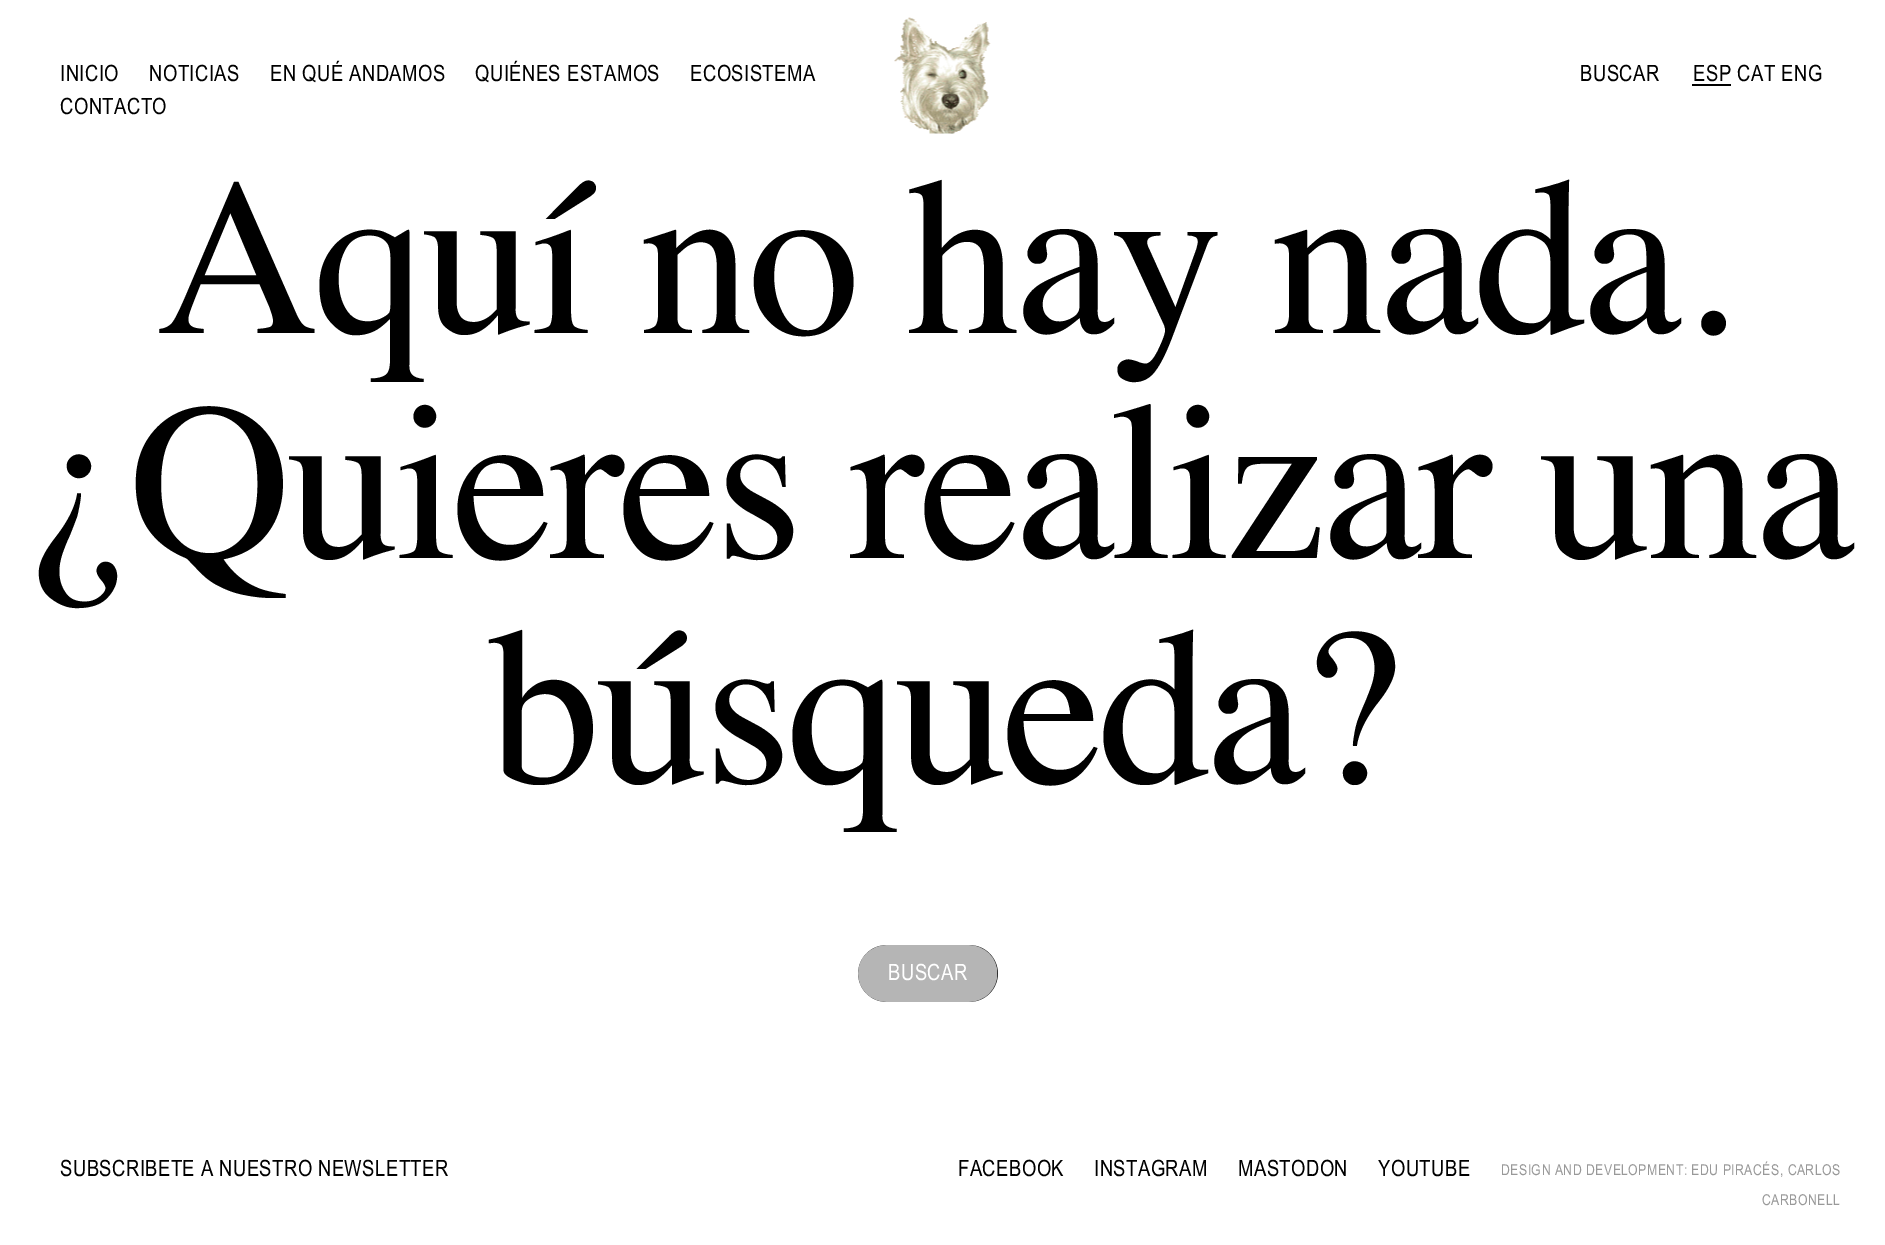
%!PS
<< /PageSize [1885 1245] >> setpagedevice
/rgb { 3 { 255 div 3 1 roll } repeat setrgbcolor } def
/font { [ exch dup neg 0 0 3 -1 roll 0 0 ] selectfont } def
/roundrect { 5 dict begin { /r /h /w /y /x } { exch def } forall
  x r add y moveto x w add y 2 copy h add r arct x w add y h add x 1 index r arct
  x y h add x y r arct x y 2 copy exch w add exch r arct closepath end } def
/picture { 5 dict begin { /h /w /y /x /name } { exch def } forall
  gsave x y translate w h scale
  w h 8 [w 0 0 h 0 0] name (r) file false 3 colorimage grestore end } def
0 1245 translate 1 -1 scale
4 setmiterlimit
255 255 255 rgb
0 0 1885 1245 rectfill
(img_01.rgb) 894 17 97 117 picture
0 0 0 rgb
1692 84 39 2 rectfill
858 945 140 57 28.5 roundrect fill
(img_02.rgb) 858 945 140 57 picture
/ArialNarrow-Regular 22.5 font
60 81 moveto 0.45 0 (INICIO) ashow
149 81 moveto 0.45 0 (NOTICIAS) ashow
270 81 moveto 0.45 0 (EN QUÉ ANDAMOS) ashow
475 81 moveto 0.45 0 (QUIÉNES ESTAMOS) ashow
690 81 moveto 0.45 0 (ECOSISTEMA) ashow
60 114 moveto 0.45 0 (CONTACTO) ashow
1580 81 moveto 0.45 0 (BUSCAR) ashow
1693 81 moveto 0.45 0 (ESP) ashow
1737 81 moveto 0.45 0 (CAT) ashow
1781 81 moveto 0.45 0 (ENG) ashow
/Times-Regular 225 font
156 333 moveto -4.5 0 (Aquí no hay nada.) ashow
34 558 moveto -4.5 0 (¿Quieres realizar una) ashow
488 783 moveto -4.5 0 (búsqueda?) ashow
/ArialNarrow-Regular 22.5 font
255 255 255 rgb
888 980 moveto 0.45 0 (BUSCAR) ashow
0 0 0 rgb
60 1176 moveto 0.45 0 (SUBSCRIBETE A NUESTRO NEWSLETTER) ashow
958 1176 moveto 0.45 0 (FACEBOOK) ashow
1094 1176 moveto 0.45 0 (INSTAGRAM) ashow
1238 1176 moveto 0.45 0 (MASTODON) ashow
1378 1176 moveto 0.45 0 (YOUTUBE) ashow
/ArialNarrow-Regular 15 font
153 153 153 rgb
1501 1175 moveto 0.45 0 (DESIGN AND DEVELOPMENT: EDU PIRACÉS, CARLOS) ashow
1762 1205 moveto 0.45 0 (CARBONELL) ashow
showpage
